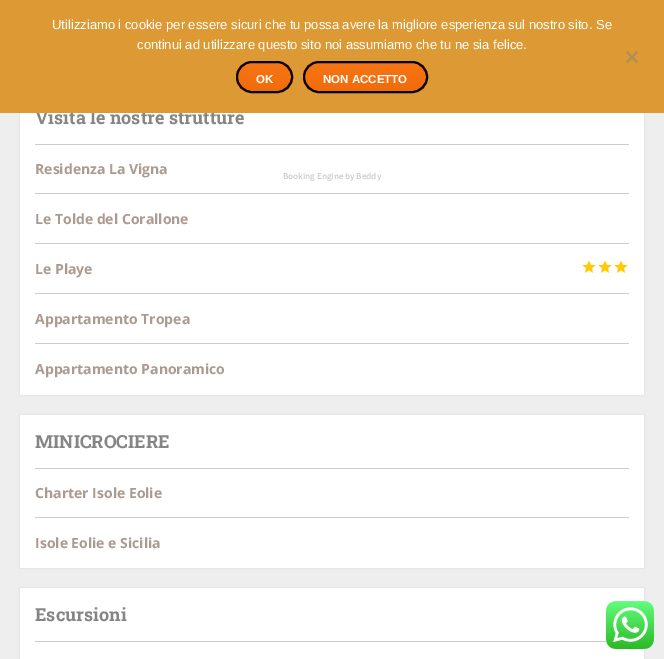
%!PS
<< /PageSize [664 659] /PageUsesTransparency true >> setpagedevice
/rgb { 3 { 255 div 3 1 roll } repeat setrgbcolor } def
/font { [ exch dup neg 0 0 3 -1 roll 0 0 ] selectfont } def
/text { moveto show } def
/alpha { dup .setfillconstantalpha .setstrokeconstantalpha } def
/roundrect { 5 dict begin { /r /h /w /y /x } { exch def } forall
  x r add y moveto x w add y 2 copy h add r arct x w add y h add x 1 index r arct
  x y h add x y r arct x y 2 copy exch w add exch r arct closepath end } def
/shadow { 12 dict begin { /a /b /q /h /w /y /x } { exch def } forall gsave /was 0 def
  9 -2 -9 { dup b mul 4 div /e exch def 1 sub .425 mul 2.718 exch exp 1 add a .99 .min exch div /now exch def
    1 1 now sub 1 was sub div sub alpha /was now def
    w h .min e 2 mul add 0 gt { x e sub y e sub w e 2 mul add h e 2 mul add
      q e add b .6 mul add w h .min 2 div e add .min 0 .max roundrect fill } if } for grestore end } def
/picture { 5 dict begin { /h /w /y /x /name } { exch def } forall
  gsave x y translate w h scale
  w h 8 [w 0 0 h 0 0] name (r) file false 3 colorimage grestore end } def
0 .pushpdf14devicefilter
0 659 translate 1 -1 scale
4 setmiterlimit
238 238 238 rgb
0 0 664 659 rectfill
0 0 0 rgb
20 91 624 304 0 1 0.1 shadow
255 255 255 rgb
20 113 624 282 rectfill
204 204 204 rgb
35 144 594 1 rectfill
35 193 594 1 rectfill
35 243 594 1 rectfill
35 293 594 1 rectfill
(img_01.rgb) 582 260 14 13 picture
(img_01.rgb) 598 260 14 13 picture
(img_01.rgb) 614 260 14 13 picture
35 343 594 1 rectfill
0 0 0 rgb
20 415 624 153 0 1 0.1 shadow
255 255 255 rgb
20 415 624 153 rectfill
204 204 204 rgb
35 468 594 1 rectfill
35 517 594 1 rectfill
0 0 0 rgb
20 588 624 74 0 1 0.1 shadow
255 255 255 rgb
20 588 624 71 rectfill
204 204 204 rgb
35 641 572 1 rectfill
(img_02.rgb) 606 601 48 48 picture
/RobotoSlab-Bold 18 font
133 133 133 rgb
(Visita le nostre strutture) 35 124 text
221 153 51 rgb
0 0 664 113 rectfill
175 141 90 rgb
636.5 51 moveto 1.5 1.5 rlineto -10.5 10.5 rlineto -1.5 -1.5 rlineto closepath fill
626 52.5 moveto 1.5 -1.5 rlineto 10.5 10.5 rlineto -1.5 1.5 rlineto closepath fill
gsave
303 61 125 32 16 roundrect clip newpath
gsave 303 63 moveto 125 0 rlineto 0 28 rlineto -125 0 rlineto closepath clip newpath
<< /ShadingType 2 /ColorSpace /DeviceRGB /Coords [366 63 366 91] /Extend [true true] /Function << /FunctionType 2 /Domain [0 1] /C0 [0.969 0.459 0.082] /C1 [0.949 0.42 0.035] /N 1 >> >> shfill grestore
grestore
0 0 0 rgb
2 setlinewidth
304 62 123 30 15 roundrect stroke
/LiberationSans-Bold 11.5 font
255 255 255 rgb
(NON ACCETTO) 323 83 text
gsave
236 61 57 32 16 roundrect clip newpath
gsave 236 63 moveto 57 0 rlineto 0 28 rlineto -57 0 rlineto closepath clip newpath
<< /ShadingType 2 /ColorSpace /DeviceRGB /Coords [265 63 265 91] /Extend [true true] /Function << /FunctionType 2 /Domain [0 1] /C0 [0.969 0.459 0.082] /C1 [0.949 0.42 0.035] /N 1 >> >> shfill grestore
grestore
0 0 0 rgb
237 62 55 30 15 roundrect stroke
255 255 255 rgb
(OK) 256 83 text
/LiberationSans-Regular 13 font
(continui ad utilizzare questo sito noi assumiamo che tu ne sia felice.) 137 49 text
(Utilizziamo i cookie per essere sicuri che tu possa avere la migliore esperienza sul nostro sito. Se) 52 29 text
/OpenSans-Bold 14 font
171 154 143 rgb
(Residenza La Vigna) 35 174 text
(Le Tolde del Corallone) 35 224 text
(Le Playe) 35 274 text
(Appartamento Tropea) 35 324 text
(Appartamento Panoramico) 35 374 text
/RobotoSlab-Bold 18 font
133 133 133 rgb
(MINICROCIERE) 35 448 text
/OpenSans-Bold 14 font
171 154 143 rgb
(Charter Isole Eolie) 35 498 text
(Isole Eolie e Sicilia) 35 548 text
/RobotoSlab-Bold 18 font
133 133 133 rgb
(Escursioni) 35 621 text
/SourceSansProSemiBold-SemiBold 9 font
204 204 204 rgb
(Booking Engine by Beddy) 283 179 text
.poppdf14devicefilter showpage
